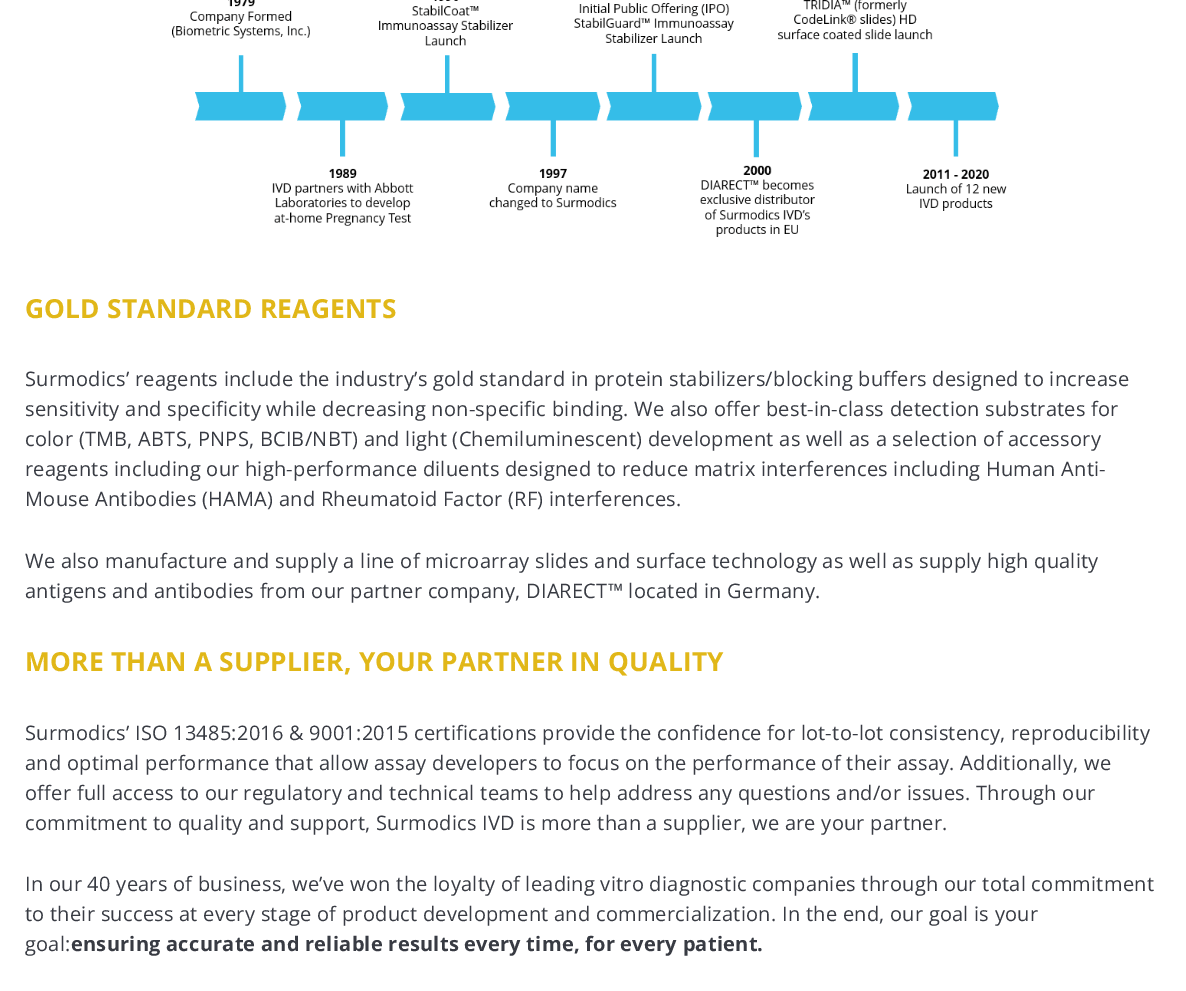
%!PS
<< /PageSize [1186 991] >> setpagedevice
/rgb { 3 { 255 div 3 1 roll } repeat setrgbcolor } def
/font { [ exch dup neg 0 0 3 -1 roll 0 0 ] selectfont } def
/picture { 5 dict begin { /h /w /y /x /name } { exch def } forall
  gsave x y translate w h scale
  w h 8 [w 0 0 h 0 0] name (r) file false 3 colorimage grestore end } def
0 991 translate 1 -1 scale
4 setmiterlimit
255 255 255 rgb
0 0 1186 991 rectfill
(img_01.rgb) 172 0 835 237 picture
/OpenSans-Bold 26.25 font
225 183 24 rgb
25 318 moveto 0.25 0 (GOLD STANDARD REAGENTS) ashow
/OpenSans-Regular 20 font
56 59 67 rgb
25 386 moveto 0.25 0 (Surmodics’ reagents include the industry’s gold standard in protein stabilizers/blocking buffers designed to increase) ashow
25 416 moveto 0.25 0 (sensitivity and specificity while decreasing non-specific binding. We also offer best-in-class detection substrates for) ashow
25 446 moveto 0.25 0 (color \(TMB, ABTS, PNPS, BCIB/NBT\) and light \(Chemiluminescent\) development as well as a selection of accessory) ashow
25 476 moveto 0.25 0 (reagents including our high-performance diluents designed to reduce matrix interferences including Human Anti-) ashow
25 506 moveto 0.25 0 (Mouse Antibodies \(HAMA\) and Rheumatoid Factor \(RF\) interferences.) ashow
25 568 moveto 0.25 0 (We also manufacture and supply a line of microarray slides and surface technology as well as supply high quality) ashow
25 598 moveto 0.25 0 (antigens and antibodies from our partner company, DIARECT™ located in Germany.) ashow
/OpenSans-Bold 26.25 font
225 183 24 rgb
25 671 moveto 0.25 0 (MORE THAN A SUPPLIER, YOUR PARTNER IN QUALITY) ashow
/OpenSans-Regular 20 font
56 59 67 rgb
25 740 moveto 0.25 0 (Surmodics’ ISO 13485:2016 & 9001:2015 certifications provide the confidence for lot-to-lot consistency, reproducibility) ashow
25 770 moveto 0.25 0 (and optimal performance that allow assay developers to focus on the performance of their assay. Additionally, we) ashow
25 800 moveto 0.25 0 (offer full access to our regulatory and technical teams to help address any questions and/or issues. Through our) ashow
25 830 moveto 0.25 0 (commitment to quality and support, Surmodics IVD is more than a supplier, we are your partner.) ashow
25 891 moveto 0.25 0 (In our 40 years of business, we’ve won the loyalty of leading vitro diagnostic companies through our total commitment) ashow
25 921 moveto 0.25 0 (to their success at every stage of product development and commercialization. In the end, our goal is your) ashow
25 951 moveto 0.25 0 (goal:) ashow
/OpenSans-Bold 20 font
71 951 moveto 0.25 0 (ensuring accurate and reliable results every time, for every patient.) ashow
showpage
